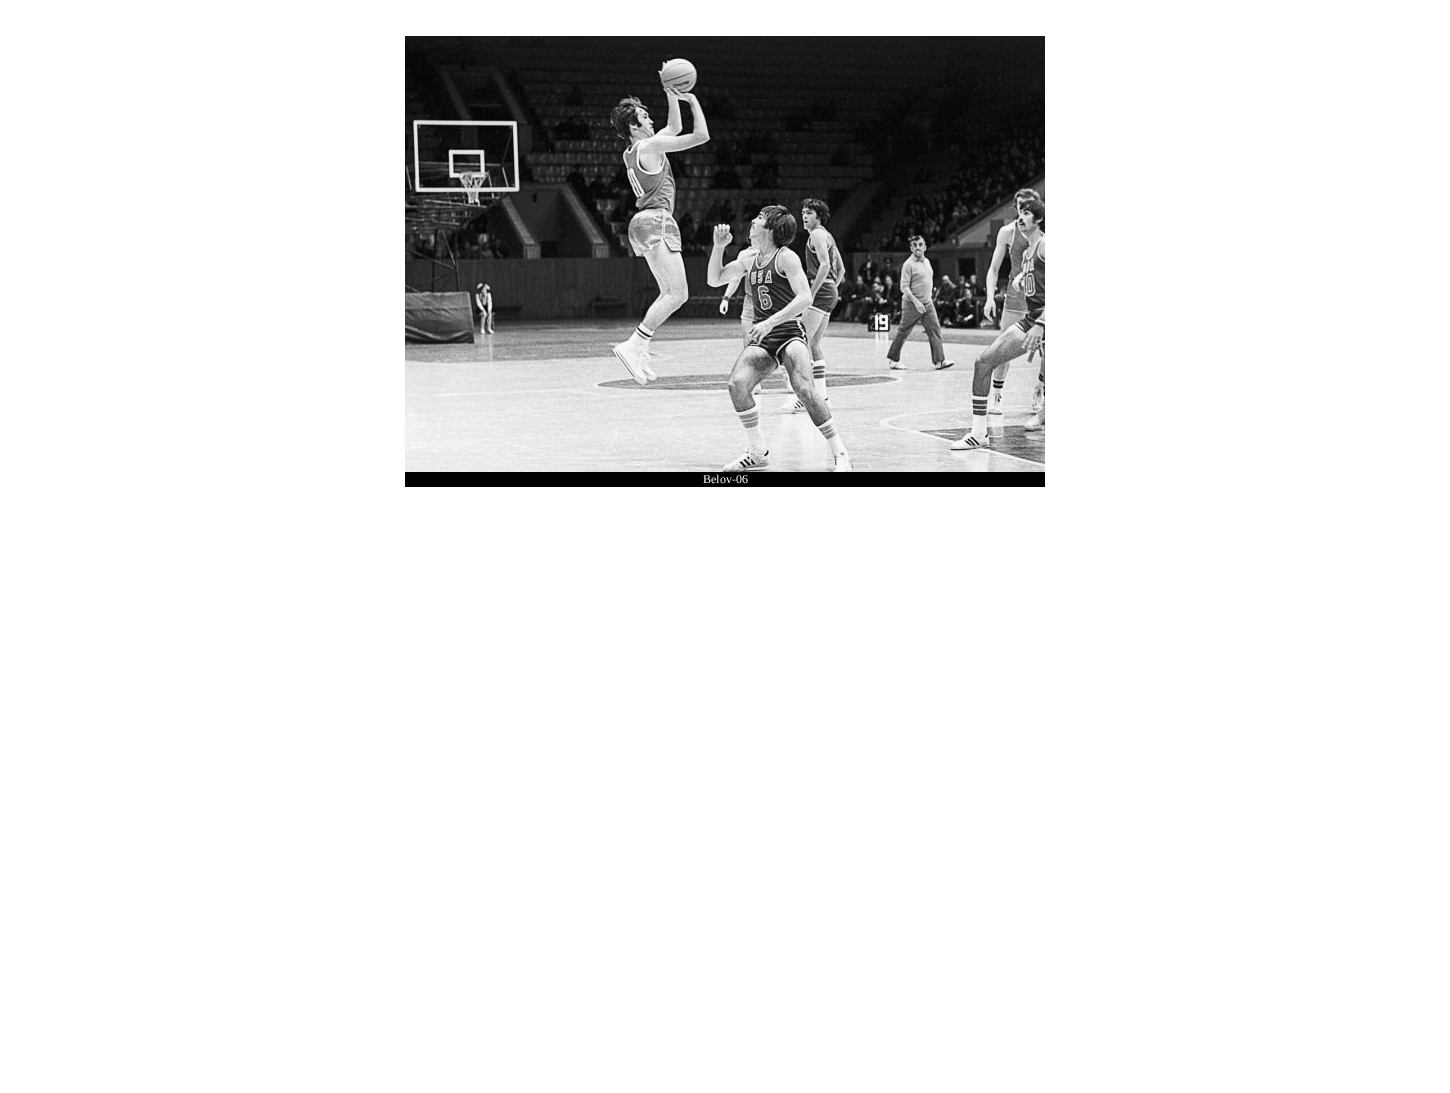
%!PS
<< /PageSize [1450 1093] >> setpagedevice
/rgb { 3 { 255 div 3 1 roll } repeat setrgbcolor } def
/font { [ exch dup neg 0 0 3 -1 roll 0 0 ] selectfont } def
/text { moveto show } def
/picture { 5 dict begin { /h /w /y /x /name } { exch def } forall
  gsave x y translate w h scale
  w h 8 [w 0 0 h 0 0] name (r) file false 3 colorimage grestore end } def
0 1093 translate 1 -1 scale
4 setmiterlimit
255 255 255 rgb
0 0 1450 1093 rectfill
(img_01.rgb) 405 36 640 436 picture
0 0 0 rgb
405 472 640 15 rectfill
/LiberationSerif-Regular 12 font
255 255 255 rgb
(Belov-06) 703 483 text
showpage
